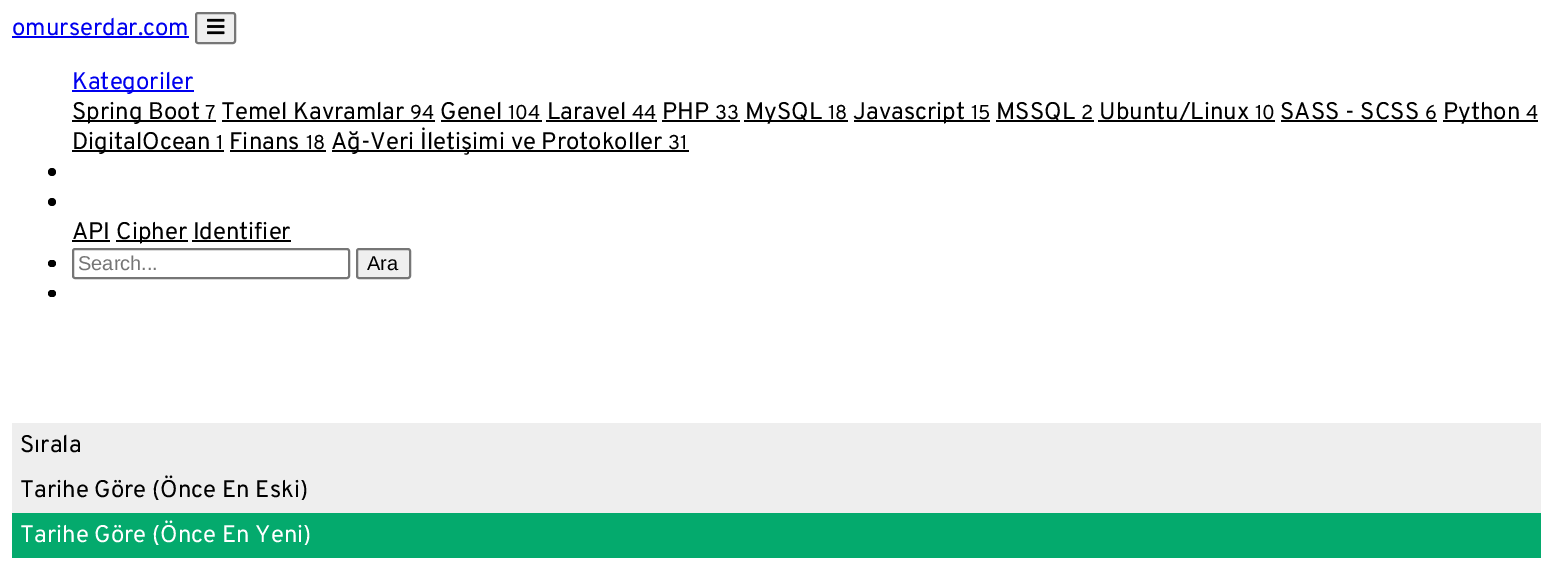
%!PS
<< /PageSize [1552 563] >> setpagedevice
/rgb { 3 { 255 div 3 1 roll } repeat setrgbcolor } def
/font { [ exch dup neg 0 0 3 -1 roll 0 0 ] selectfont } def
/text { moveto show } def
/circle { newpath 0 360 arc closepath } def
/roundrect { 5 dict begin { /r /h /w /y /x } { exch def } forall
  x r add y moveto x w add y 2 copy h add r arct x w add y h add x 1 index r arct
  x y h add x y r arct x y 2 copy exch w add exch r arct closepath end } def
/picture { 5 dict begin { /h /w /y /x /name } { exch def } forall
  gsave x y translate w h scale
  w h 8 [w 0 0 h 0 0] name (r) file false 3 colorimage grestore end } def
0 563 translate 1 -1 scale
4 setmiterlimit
255 255 255 rgb
0 0 1552 563 rectfill
0 0 238 rgb
12 36 177 2 rectfill
239 239 239 rgb
196 13 39 30 2 roundrect gsave fill grestore
118 118 118 rgb
2 setlinewidth
stroke
(img_01.rgb) 207 18 18 17 picture
0 0 238 rgb
72 90 122 2 rectfill
0 0 0 rgb
72 120 144 2 rectfill
222 120 213 2 rectfill
441 120 101 2 rectfill
546 120 111 2 rectfill
662 120 78 2 rectfill
744 120 104 2 rectfill
854 120 136 2 rectfill
996 120 98 2 rectfill
1098 120 177 2 rectfill
1281 120 156 2 rectfill
1443 120 95 2 rectfill
72 150 152 2 rectfill
230 150 96 2 rectfill
332 150 357 2 rectfill
52 172 4 circle fill
52 202 4 circle fill
72 240 38 2 rectfill
116 240 72 2 rectfill
192 240 99 2 rectfill
48 260 8 7 3.5 roundrect fill
118 118 118 rgb
73 249 276 29 2 roundrect stroke
239 239 239 rgb
357 249 53 29 2 roundrect gsave fill grestore
118 118 118 rgb
stroke
0 0 0 rgb
48 290 8 7 3.5 roundrect fill
238 238 238 rgb
12 423 1529 90 rectfill
4 170 109 rgb
12 513 1529 45 rectfill
/Overpass-Regular 24 font
0 0 238 rgb
(omurserdar.com) 12 35 text
(Kategoriler) 72 89 text
0 0 0 rgb
(Spring Boot) 72 119 text
/Overpass-Regular 20 font
(7) 205 119 text
/Overpass-Regular 24 font
(Temel Kavramlar) 221 119 text
/Overpass-Regular 20 font
(94) 410 119 text
/Overpass-Regular 24 font
(Genel) 440 119 text
/Overpass-Regular 20 font
(104) 508 119 text
/Overpass-Regular 24 font
(Laravel) 547 119 text
/Overpass-Regular 20 font
(44) 632 119 text
/Overpass-Regular 24 font
(PHP) 662 119 text
/Overpass-Regular 20 font
(33) 715 119 text
/Overpass-Regular 24 font
(MySQL) 745 119 text
/Overpass-Regular 20 font
(18) 828 119 text
/Overpass-Regular 24 font
(Javascript) 853 119 text
/Overpass-Regular 20 font
(15) 971 119 text
/Overpass-Regular 24 font
(MSSQL) 996 119 text
/Overpass-Regular 20 font
(2) 1081 119 text
/Overpass-Regular 24 font
(Ubuntu/Linux) 1099 119 text
/Overpass-Regular 20 font
(10) 1255 119 text
/Overpass-Regular 24 font
(SASS - SCSS) 1280 119 text
/Overpass-Regular 20 font
(6) 1425 119 text
/Overpass-Regular 24 font
(Python) 1443 119 text
/Overpass-Regular 20 font
(4) 1526 119 text
/Overpass-Regular 24 font
(DigitalOcean) 72 149 text
/Overpass-Regular 20 font
(1) 216 149 text
/Overpass-Regular 24 font
(Finans) 229 149 text
/Overpass-Regular 20 font
(18) 306 149 text
/Overpass-Regular 24 font
(Ağ-Veri İletişimi ve Protokoller) 331 149 text
/Overpass-Regular 20 font
(31) 668 149 text
/Overpass-Regular 24 font
(API) 72 239 text
(Cipher Identifier) 116 239 text
/LiberationSans-Regular 20 font
117 117 117 rgb
(Search...) 78 270 text
0 0 0 rgb
(Ara) 367 270 text
/Overpass-Regular 24 font
(Sırala) 20 452 text
(Tarihe Göre \(Önce En Eski\)) 20 497 text
255 255 255 rgb
(Tarihe Göre \(Önce En Yeni\)) 20 542 text
showpage
